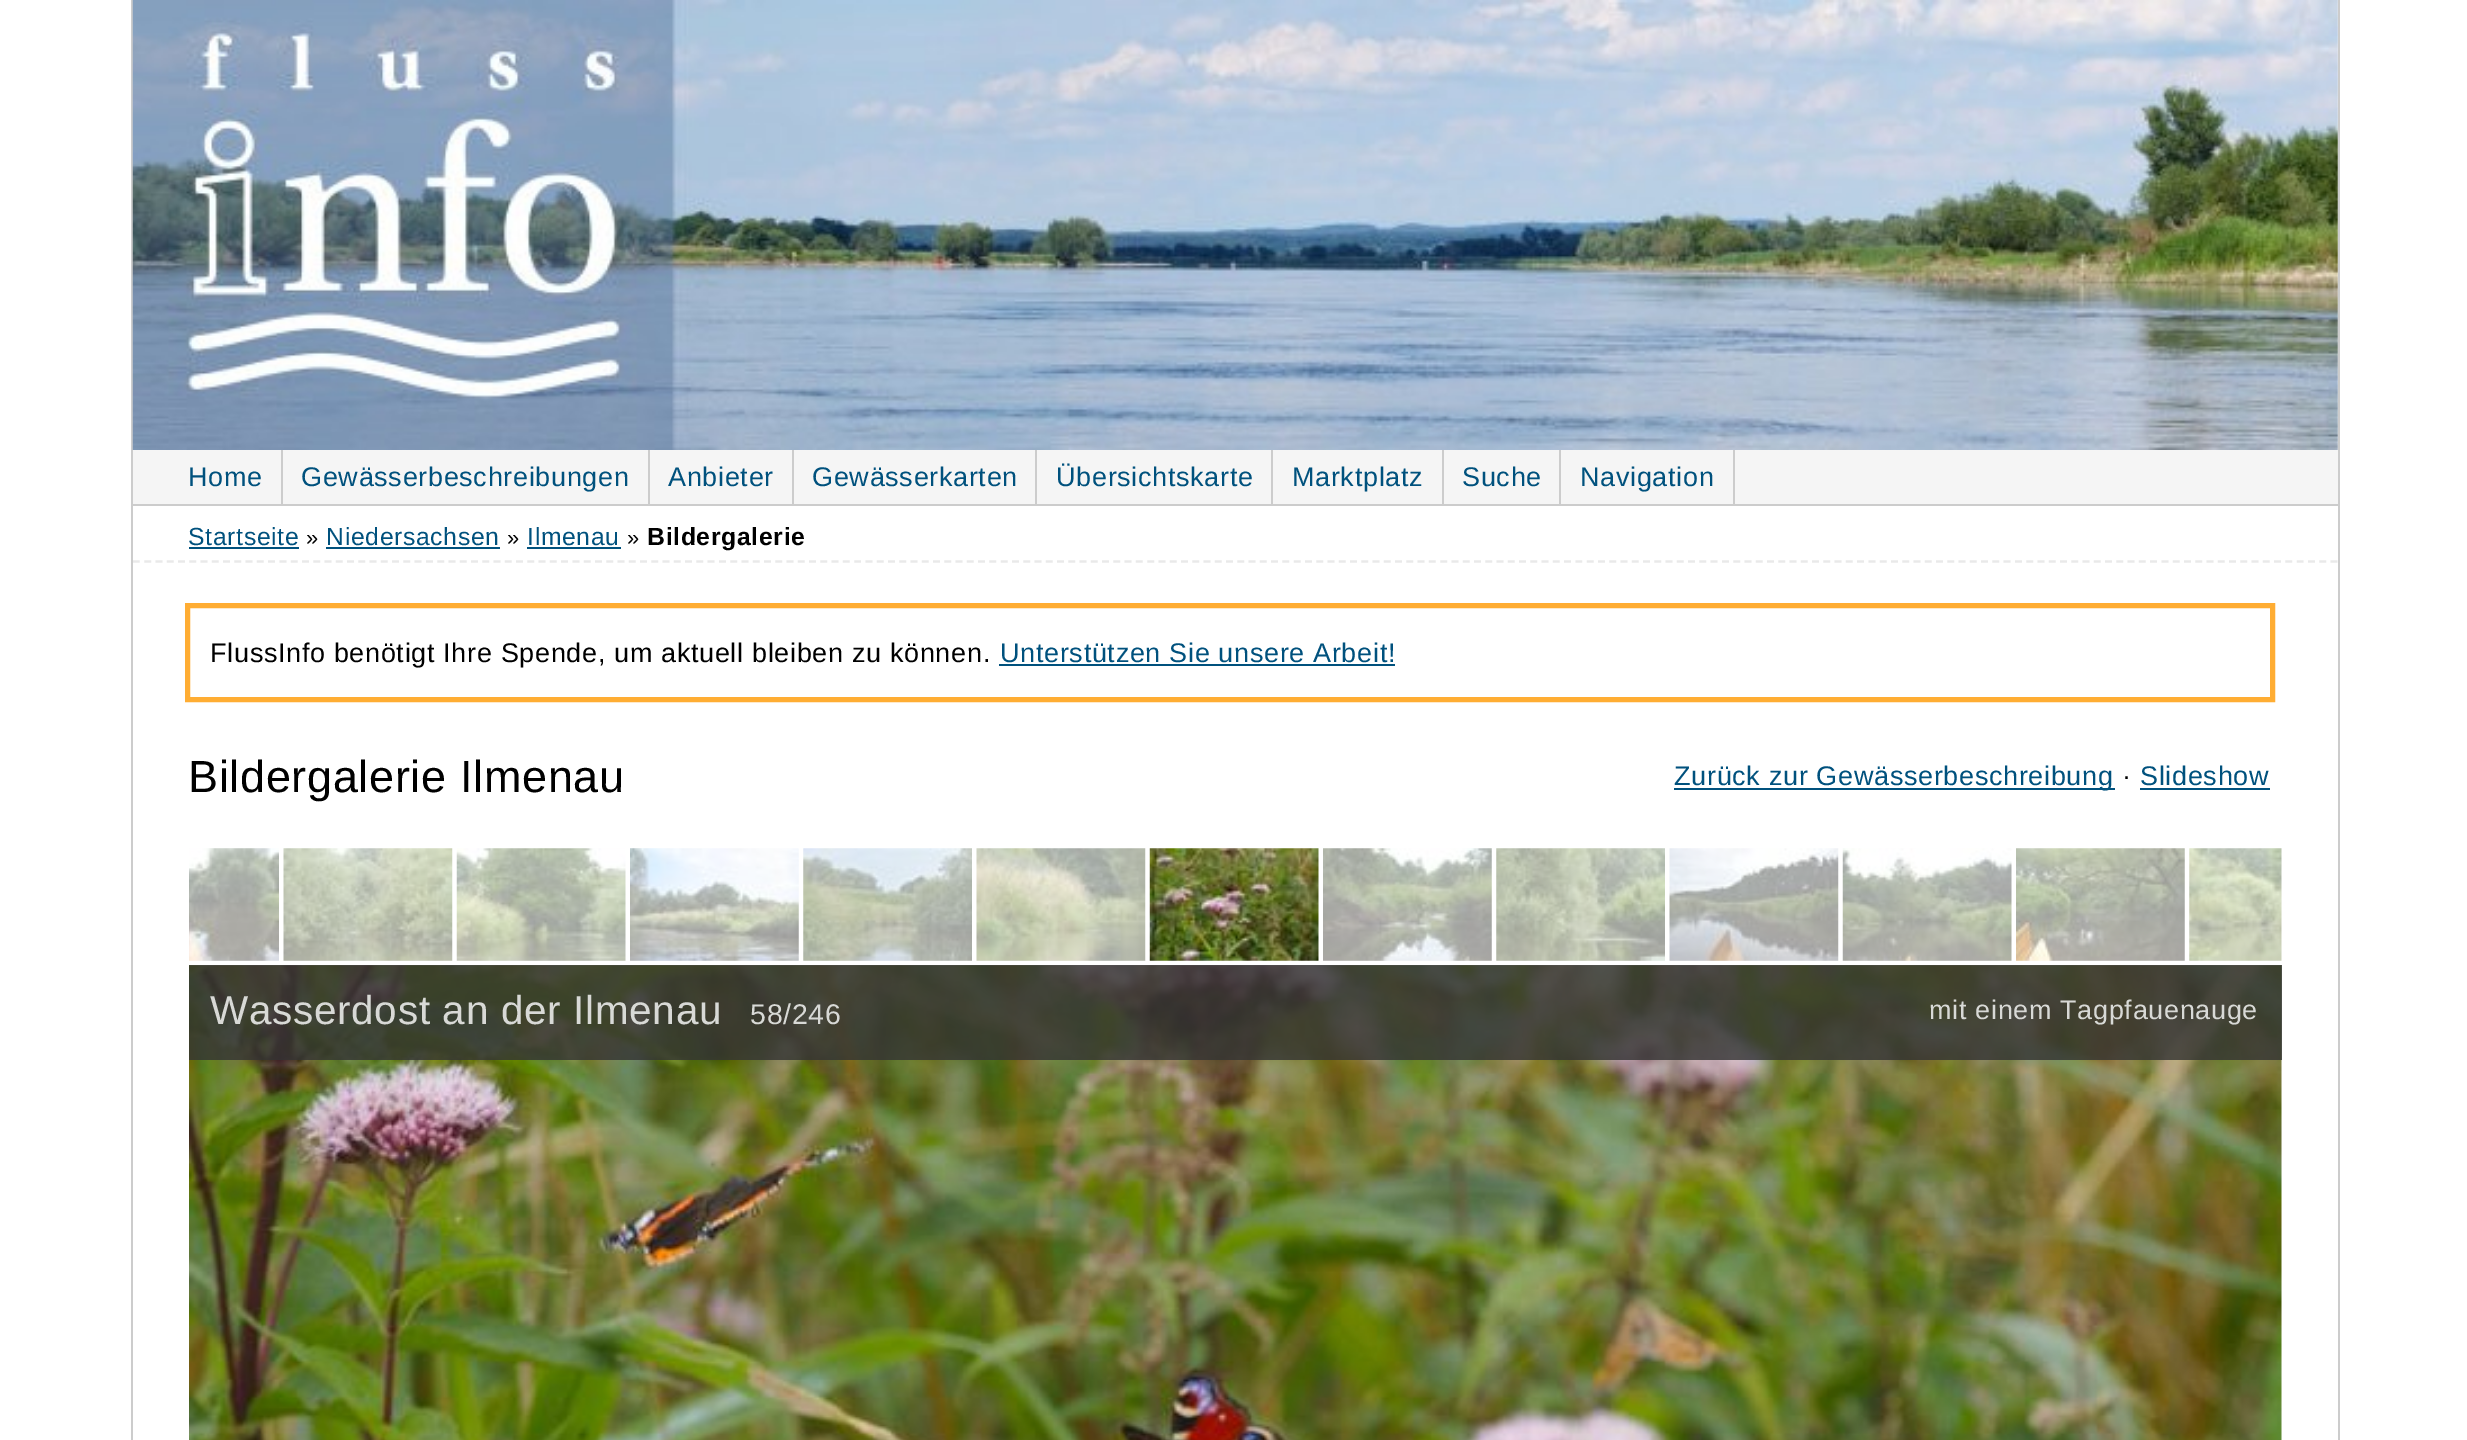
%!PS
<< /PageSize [2467 1440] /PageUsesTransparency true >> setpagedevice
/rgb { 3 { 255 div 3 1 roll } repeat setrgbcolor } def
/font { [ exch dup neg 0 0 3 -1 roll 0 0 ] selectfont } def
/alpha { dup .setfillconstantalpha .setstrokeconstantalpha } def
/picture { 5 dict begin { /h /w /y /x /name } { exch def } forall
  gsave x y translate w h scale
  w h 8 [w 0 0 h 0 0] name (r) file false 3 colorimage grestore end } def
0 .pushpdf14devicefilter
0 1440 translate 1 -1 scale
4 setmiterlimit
255 255 255 rgb
0 0 2467 1440 rectfill
245 245 245 rgb
133 0 2205 504 rectfill
204 204 204 rgb
2338 0 2 1440 rectfill
131 504 2209 2 rectfill
131 0 2 1440 rectfill
(img_01.rgb) 132 0 2206 450 picture
281 450 2 54 rectfill
648 450 2 54 rectfill
792 450 2 54 rectfill
1035 450 2 54 rectfill
1271 450 2 54 rectfill
1442 450 2 54 rectfill
1559 450 2 54 rectfill
1733 450 2 54 rectfill
233 233 233 rgb
2.2 setlinewidth
[6.75 4.52] 0 setdash
133 561.5 moveto 2205 0 rlineto stroke
0 81 125 rgb
189 547 110 2 rectfill
326 547 174 2 rectfill
527 547 94 2 rectfill
999 664 396 2 rectfill
255 173 51 rgb
5 setlinewidth
[] 0 setdash
187.5 605.5 2085 94 rectstroke
0 81 125 rgb
1674 788 441 2 rectfill
2140 788 130 2 rectfill
(img_02.rgb) 189 848 90 113 picture
(img_03.rgb) 283 848 170 113 picture
(img_04.rgb) 456 848 170 113 picture
(img_05.rgb) 630 848 169 113 picture
(img_06.rgb) 803 848 169 113 picture
(img_07.rgb) 976 848 170 113 picture
(img_08.rgb) 1149 848 170 113 picture
(img_09.rgb) 1323 848 169 113 picture
(img_10.rgb) 1496 848 169 113 picture
(img_11.rgb) 1669 848 170 113 picture
(img_12.rgb) 1842 848 170 113 picture
(img_13.rgb) 2016 848 169 113 picture
(img_14.rgb) 2189 848 93 113 picture
(img_15.rgb) 189 965 2093 475 picture
0.8 alpha
51 51 51 rgb
189 965 2093 95 rectfill
/LiberationSans-Regular 27 font
1 alpha
0 81 125 rgb
188 486 moveto 0.67 0 (Home) ashow
301 486 moveto 0.67 0 (Gewässerbeschreibungen) ashow
668 486 moveto 0.67 0 (Anbieter) ashow
812 486 moveto 0.67 0 (Gewässerkarten) ashow
1056 486 moveto 0.67 0 (Übersichtskarte) ashow
1292 486 moveto 0.67 0 (Marktplatz) ashow
1462 486 moveto 0.67 0 (Suche) ashow
1580 486 moveto 0.67 0 (Navigation) ashow
/LiberationSans-Regular 24.75 font
188 545 moveto 0.67 0 (Startseite) ashow
/LiberationSans-Regular 22 font
0 0 0 rgb
306 545 moveto 0.67 0 (») ashow
/LiberationSans-Regular 24.75 font
0 81 125 rgb
326 545 moveto 0.67 0 (Niedersachsen) ashow
/LiberationSans-Regular 22 font
0 0 0 rgb
507 545 moveto 0.67 0 (») ashow
/LiberationSans-Regular 24.75 font
0 81 125 rgb
527 545 moveto 0.67 0 (Ilmenau) ashow
/LiberationSans-Regular 22 font
0 0 0 rgb
627 545 moveto 0.67 0 (») ashow
/LiberationSans-Bold 24.75 font
647 545 moveto 0.67 0 (Bildergalerie) ashow
/LiberationSans-Regular 27 font
210 662 moveto 0.67 0 (FlussInfo benötigt Ihre Spende, um aktuell bleiben zu können.) ashow
0 81 125 rgb
1000 662 moveto 0.67 0 (Unterstützen Sie unsere Arbeit!) ashow
/LiberationSans-Regular 45 font
0 0 0 rgb
188 792 moveto 0.67 0 (Bildergalerie Ilmenau) ashow
/LiberationSans-Regular 27 font
0 81 125 rgb
1674 785 moveto 0.67 0 (Zurück zur Gewässerbeschreibung) ashow
0 0 0 rgb
2122 785 moveto 0.67 0 (·) ashow
0 81 125 rgb
2140 785 moveto 0.67 0 (Slideshow) ashow
/LiberationSans-Regular 40.5 font
216 217 214 rgb
210 1024 moveto 0.67 0 (Wasserdost an der Ilmenau) ashow
/LiberationSans-Regular 28.5 font
750 1024 moveto 0.67 0 (58/246) ashow
/LiberationSans-Regular 27 font
1929 1019 moveto 0.67 0 (mit einem Tagpfauenauge) ashow
.poppdf14devicefilter showpage
